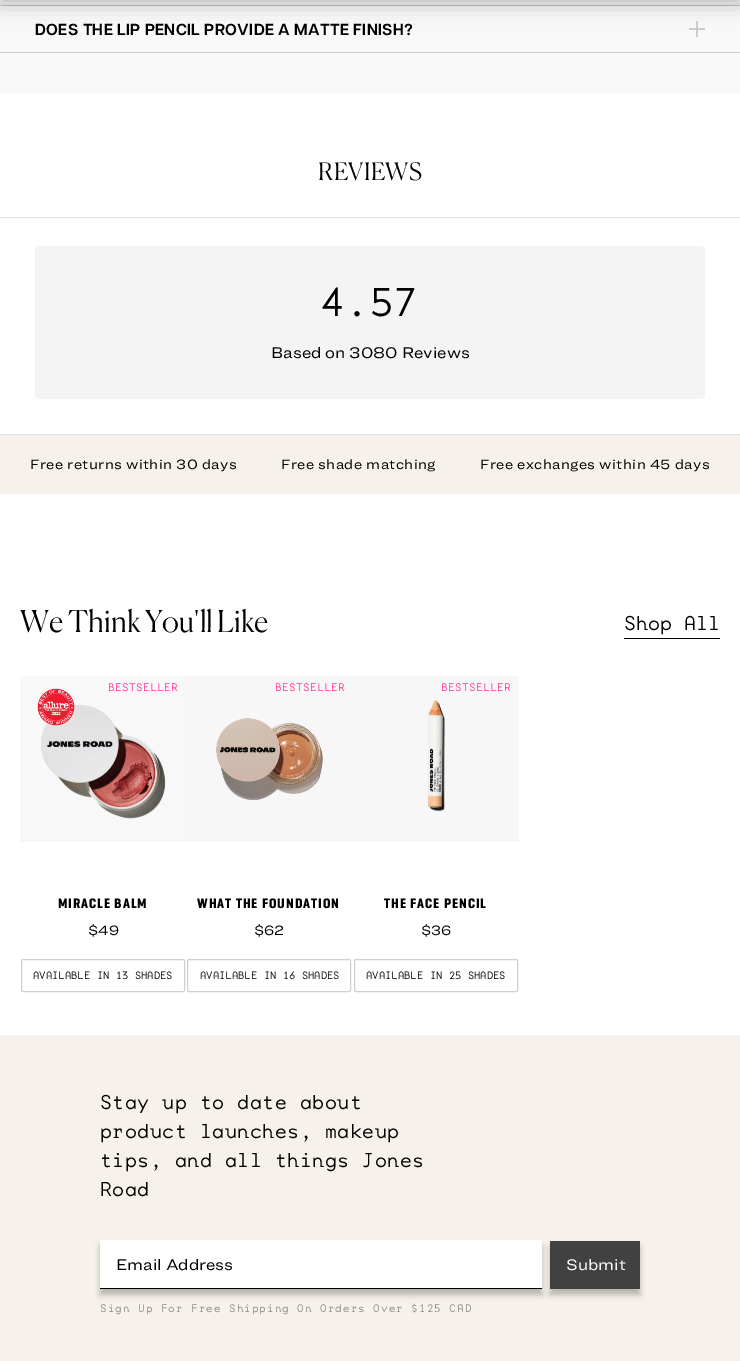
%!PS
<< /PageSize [740 1361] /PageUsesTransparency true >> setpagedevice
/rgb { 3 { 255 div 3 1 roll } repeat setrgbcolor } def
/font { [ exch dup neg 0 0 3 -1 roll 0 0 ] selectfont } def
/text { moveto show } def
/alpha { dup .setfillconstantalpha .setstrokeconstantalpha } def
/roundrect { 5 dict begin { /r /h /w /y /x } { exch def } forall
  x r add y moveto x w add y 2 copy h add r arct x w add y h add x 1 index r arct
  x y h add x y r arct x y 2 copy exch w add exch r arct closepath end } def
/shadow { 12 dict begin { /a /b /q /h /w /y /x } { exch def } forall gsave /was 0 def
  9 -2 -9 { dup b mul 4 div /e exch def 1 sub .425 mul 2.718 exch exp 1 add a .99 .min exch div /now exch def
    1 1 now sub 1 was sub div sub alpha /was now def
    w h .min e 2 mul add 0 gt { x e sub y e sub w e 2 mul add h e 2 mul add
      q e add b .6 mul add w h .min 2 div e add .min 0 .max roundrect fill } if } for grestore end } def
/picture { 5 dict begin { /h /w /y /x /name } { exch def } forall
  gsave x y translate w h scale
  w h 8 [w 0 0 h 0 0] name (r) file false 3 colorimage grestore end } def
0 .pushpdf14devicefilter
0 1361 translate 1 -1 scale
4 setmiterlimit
255 255 255 rgb
0 0 740 1361 rectfill
248 248 248 rgb
0 0 740 93 rectfill
204 204 204 rgb
0 5 740 1 rectfill
696 21 2 16 rectfill
689 28 16 2 rectfill
0 0 0 rgb
0 -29 740 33 0 9.5 0.25 shadow
204 204 204 rgb
0 52 740 1 rectfill
224 224 224 rgb
0 217 740 1 rectfill
0 434 740 1 rectfill
244 244 244 rgb
35 246 670 153 4 roundrect fill
246 242 235 rgb
0 435 740 59 rectfill
0 0 0 rgb
624 638 96 1 rectfill
(img_01.rgb) 20 676 166 166 picture
(img_03.rgb) 41 698 125 141 picture
(img_02.rgb) 37 688 38 38 picture
208 208 208 rgb
21.5 959.5 163 32 1.5 roundrect stroke
(img_04.rgb) 186 676 167 166 picture
(img_05.rgb) 216 704 107 110 picture
187.5 959.5 163 32 1.5 roundrect stroke
(img_06.rgb) 353 676 166 166 picture
(img_07.rgb) 402 700 66 115 picture
354.5 959.5 163 32 1.5 roundrect stroke
246 242 235 rgb
0 1035 740 326 rectfill
0 0 0 rgb
100 1246 442 49 0 3 0.25 shadow
255 255 255 rgb
100 1240 442 48 rectfill
0 0 0 rgb
100 1288 442 1 rectfill
550 1247 90 48 0 3 0.25 shadow
65 65 65 rgb
550 1241 90 48 rectfill
/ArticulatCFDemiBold-SemiBold 16 font
0 0 0 rgb
35 35 moveto 0.4 0 (DOES THE LIP PENCIL PROVIDE A MATTE FINISH?) ashow
/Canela-Light 24 font
318 180 moveto 0.4 0 (REVIEWS) ashow
/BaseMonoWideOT-Regular 40 font
321 316 moveto 0.4 0 (4.57) ashow
/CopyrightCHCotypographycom-Light 16 font
(Based on 3080 Reviews) 271 358 text
/CopyrightCHCotypographycom-Light 14 font
30 469 moveto 0.4 0 (Free returns within 30 days) ashow
281 469 moveto 0.4 0 (Free shade matching) ashow
480 469 moveto 0.4 0 (Free exchanges within 45 days) ashow
/Canela-Light 30 font
(We Think You'll Like) 20 632 text
/BaseMonoWideOT-Regular 20 font
(Shop All) 624 630 text
/BaseMonoWideOT-Regular 11 font
255 46 146 rgb
108 691 moveto 0.4 0 (BESTSELLER) ashow
/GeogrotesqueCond-Bold 14 font
0 0 0 rgb
58 908 moveto 1 0 (MIRACLE BALM) ashow
/CopyrightCHCotypographycom-Light 14 font
($49) 88 935 text
/BaseMonoWideOT-Regular 10.6 font
(AVAILABLE IN 13 SHADES) 33 979 text
/BaseMonoWideOT-Regular 11 font
255 46 146 rgb
275 691 moveto 0.4 0 (BESTSELLER) ashow
/GeogrotesqueCond-Bold 14 font
0 0 0 rgb
197 908 moveto 1 0 (WHAT THE FOUNDATION) ashow
/CopyrightCHCotypographycom-Light 14 font
($62) 254 935 text
/BaseMonoWideOT-Regular 10.6 font
(AVAILABLE IN 16 SHADES) 200 979 text
/BaseMonoWideOT-Regular 11 font
255 46 146 rgb
441 691 moveto 0.4 0 (BESTSELLER) ashow
/GeogrotesqueCond-Bold 14 font
0 0 0 rgb
384 908 moveto 1 0 (THE FACE PENCIL) ashow
/CopyrightCHCotypographycom-Light 14 font
($36) 421 935 text
/BaseMonoWideOT-Regular 10.6 font
(AVAILABLE IN 25 SHADES) 366 979 text
/BaseMonoWideOT-Regular 20 font
100 1109 moveto 0.5 0 (Stay up to date about) ashow
100 1138 moveto 0.5 0 (product launches, makeup) ashow
100 1167 moveto 0.5 0 (tips, and all things Jones) ashow
100 1196 moveto 0.5 0 (Road) ashow
/CopyrightCHCotypographycom-Light 16 font
(Email Address) 116 1270 text
255 255 255 rgb
(Submit) 566 1270 text
/BaseMonoWideOT-Regular 11 font
137 137 137 rgb
100 1312 moveto 1 0 (Sign Up For Free Shipping On Orders Over $125 CAD) ashow
.poppdf14devicefilter showpage
